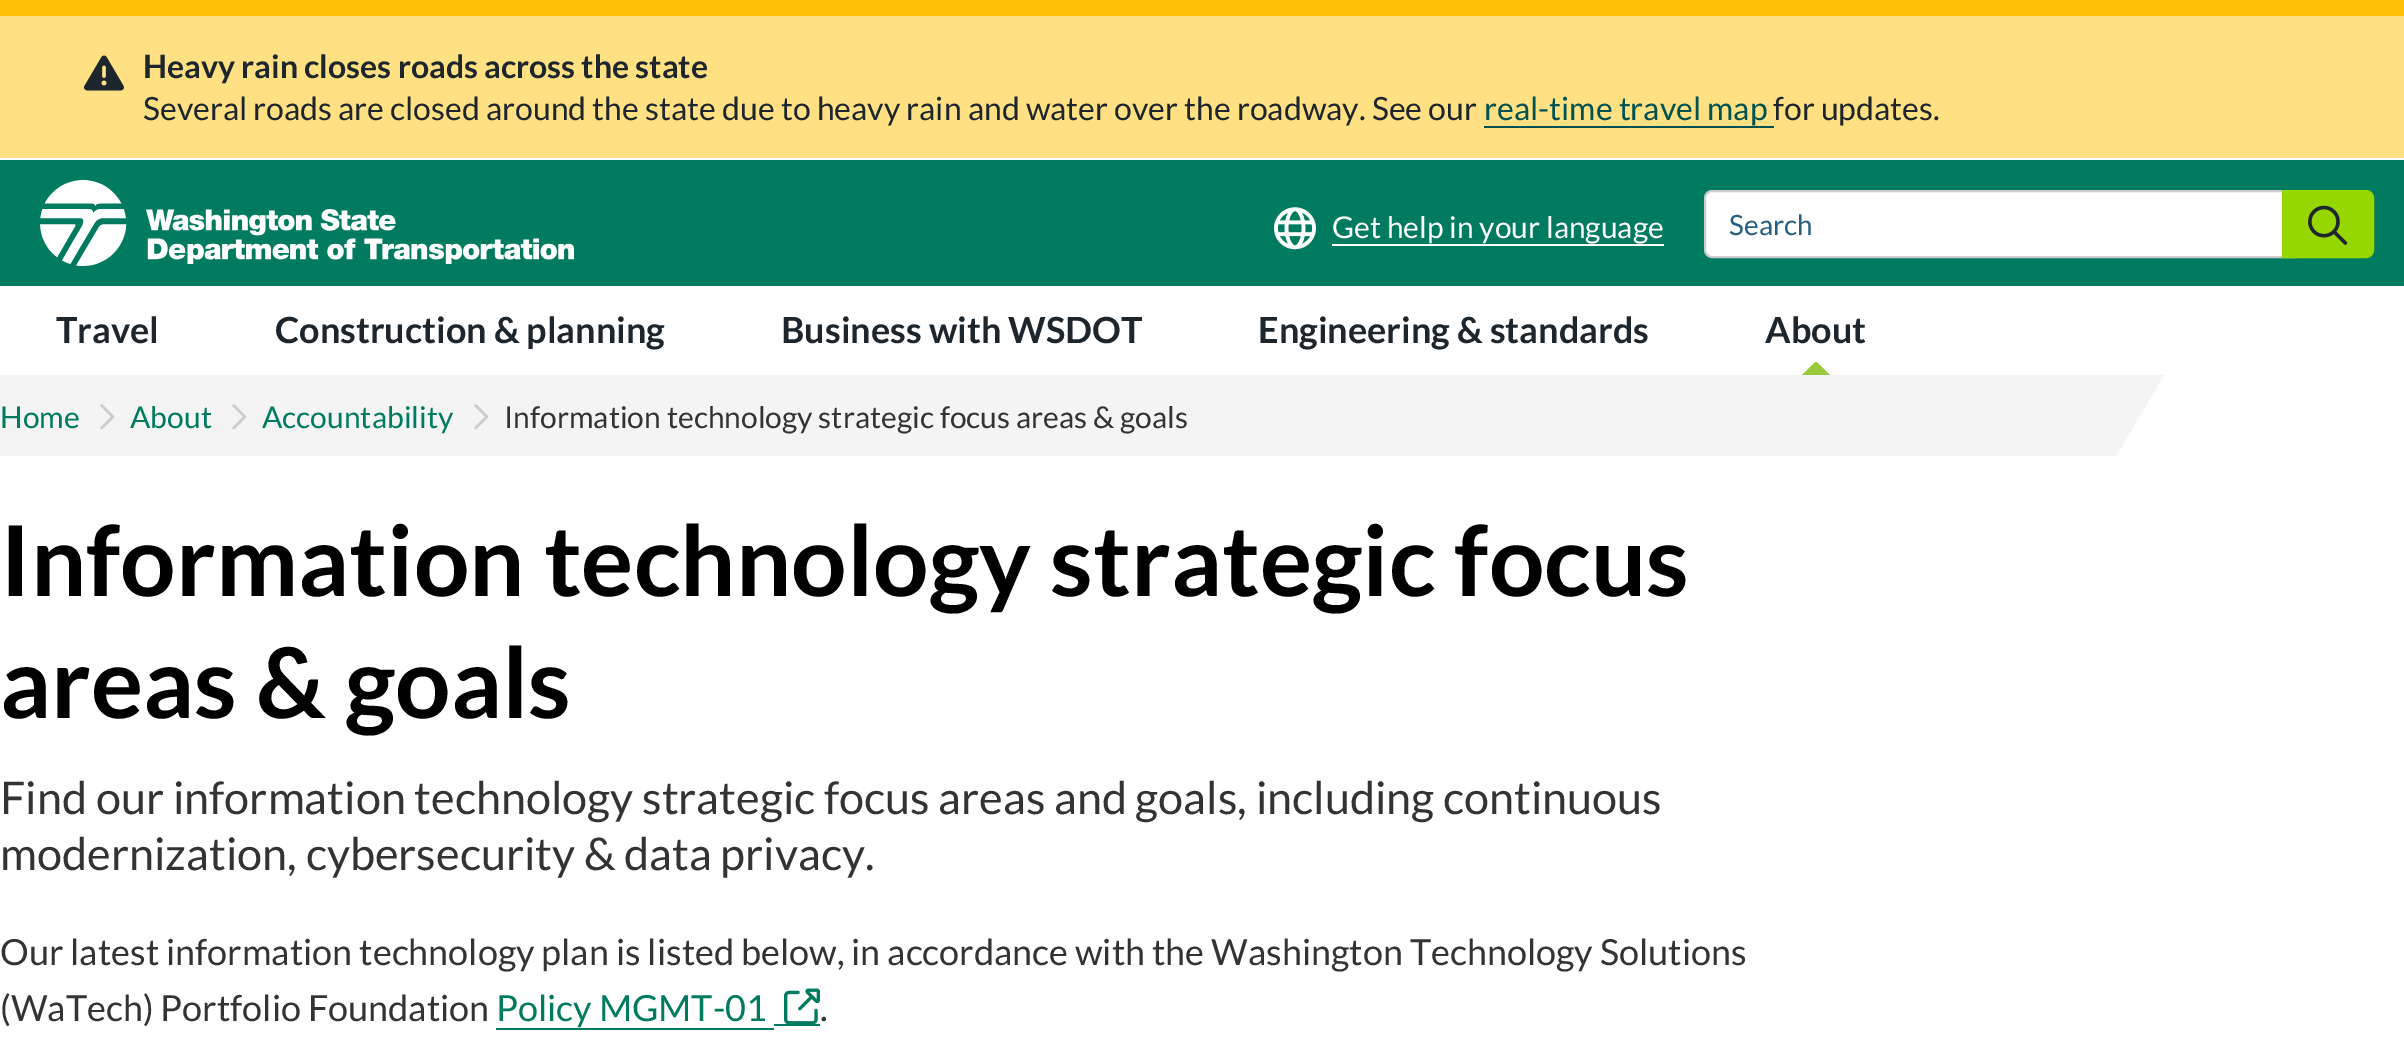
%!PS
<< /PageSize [2404 1060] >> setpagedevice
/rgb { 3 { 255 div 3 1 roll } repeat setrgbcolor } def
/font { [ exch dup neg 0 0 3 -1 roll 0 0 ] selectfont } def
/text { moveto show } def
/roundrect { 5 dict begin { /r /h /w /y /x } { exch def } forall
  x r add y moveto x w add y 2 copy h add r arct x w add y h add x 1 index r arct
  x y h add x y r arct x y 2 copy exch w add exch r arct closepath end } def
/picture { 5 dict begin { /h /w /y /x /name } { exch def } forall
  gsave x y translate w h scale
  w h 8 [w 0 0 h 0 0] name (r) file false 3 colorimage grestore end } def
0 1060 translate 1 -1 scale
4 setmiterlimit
255 255 255 rgb
0 0 2404 1060 rectfill
255 224 131 rgb
0 16 2404 142 rectfill
255 193 7 rgb
0 0 2404 16 rectfill
(img_01.rgb) 84 55 40 36 picture
0 81 81 rgb
1484 126 290 2 rectfill
0 123 95 rgb
0 160 2404 126 rectfill
(img_02.rgb) 40 180 534 86 picture
(img_03.rgb) 1274 207 42 43 picture
255 255 255 rgb
1332 244 332 2 rectfill
1705 191 598 66 7 roundrect gsave fill grestore
204 204 204 rgb
2 setlinewidth
stroke
151 215 0 rgb
2283 191 moveto 83 0 rlineto 4 0 7 3 7 7 rcurveto 0 52 rlineto 0 4 -3 7 -7 7 rcurveto -83 0 rlineto closepath gsave fill grestore
stroke
(img_04.rgb) 2308 205 40 40 picture
(img_05.rgb) 1802 362 28 13 picture
244 244 245 rgb
0 375 moveto 0 81 rlineto 2116 0 rlineto 48 -81 rlineto closepath fill
(img_06.rgb) 100 404 15 26 picture
(img_06.rgb) 232 404 15 26 picture
(img_06.rgb) 474 404 15 26 picture
0 123 95 rgb
496 1028 278 2 rectfill
774 1024 46 2 rectfill
(img_07.rgb) 784 988 36 36 picture
/Lato-Bold 32 font
29 37 45 rgb
(Heavy rain closes roads across the state) 143 78 text
/Lato-Regular 32 font
(Several roads are closed around the state due to heavy rain and water over the roadway. See our) 143 120 text
0 81 81 rgb
(real-time travel map) 1484 120 text
29 37 45 rgb
(for updates.) 1773 120 text
/Lato-Regular 30 font
255 255 255 rgb
(Get help in your language) 1332 238 text
/Lato-Regular 28 font
37 96 129 rgb
(Search) 1729 235 text
/Lato-Bold 36 font
29 37 45 rgb
(Travel) 56 343 text
(Construction & planning) 275 343 text
(Business with WSDOT) 781 343 text
(Engineering & standards) 1258 343 text
(About) 1765 343 text
/Lato-Regular 30 font
0 123 95 rgb
(Home) 0 428 text
(About) 130 428 text
(Accountability) 262 428 text
51 51 51 rgb
(Information technology strategic focus areas & goals) 504 428 text
/Lato-Bold 97.7 font
0 0 0 rgb
(Information technology strategic focus) 0 596 text
(areas & goals) 0 718 text
/Lato-Regular 45 font
51 51 51 rgb
(Find our information technology strategic focus areas and goals, including continuous) 0 814 text
(modernization, cybersecurity & data privacy.) 0 870 text
/Lato-Regular 36 font
(Our latest information technology plan is listed below, in accordance with the Washington Technology Solutions) 0 965 text
(\(WaTech\) Portfolio Foundation) 0 1021 text
0 123 95 rgb
(Policy MGMT-01) 496 1021 text
51 51 51 rgb
(.) 820 1021 text
showpage
